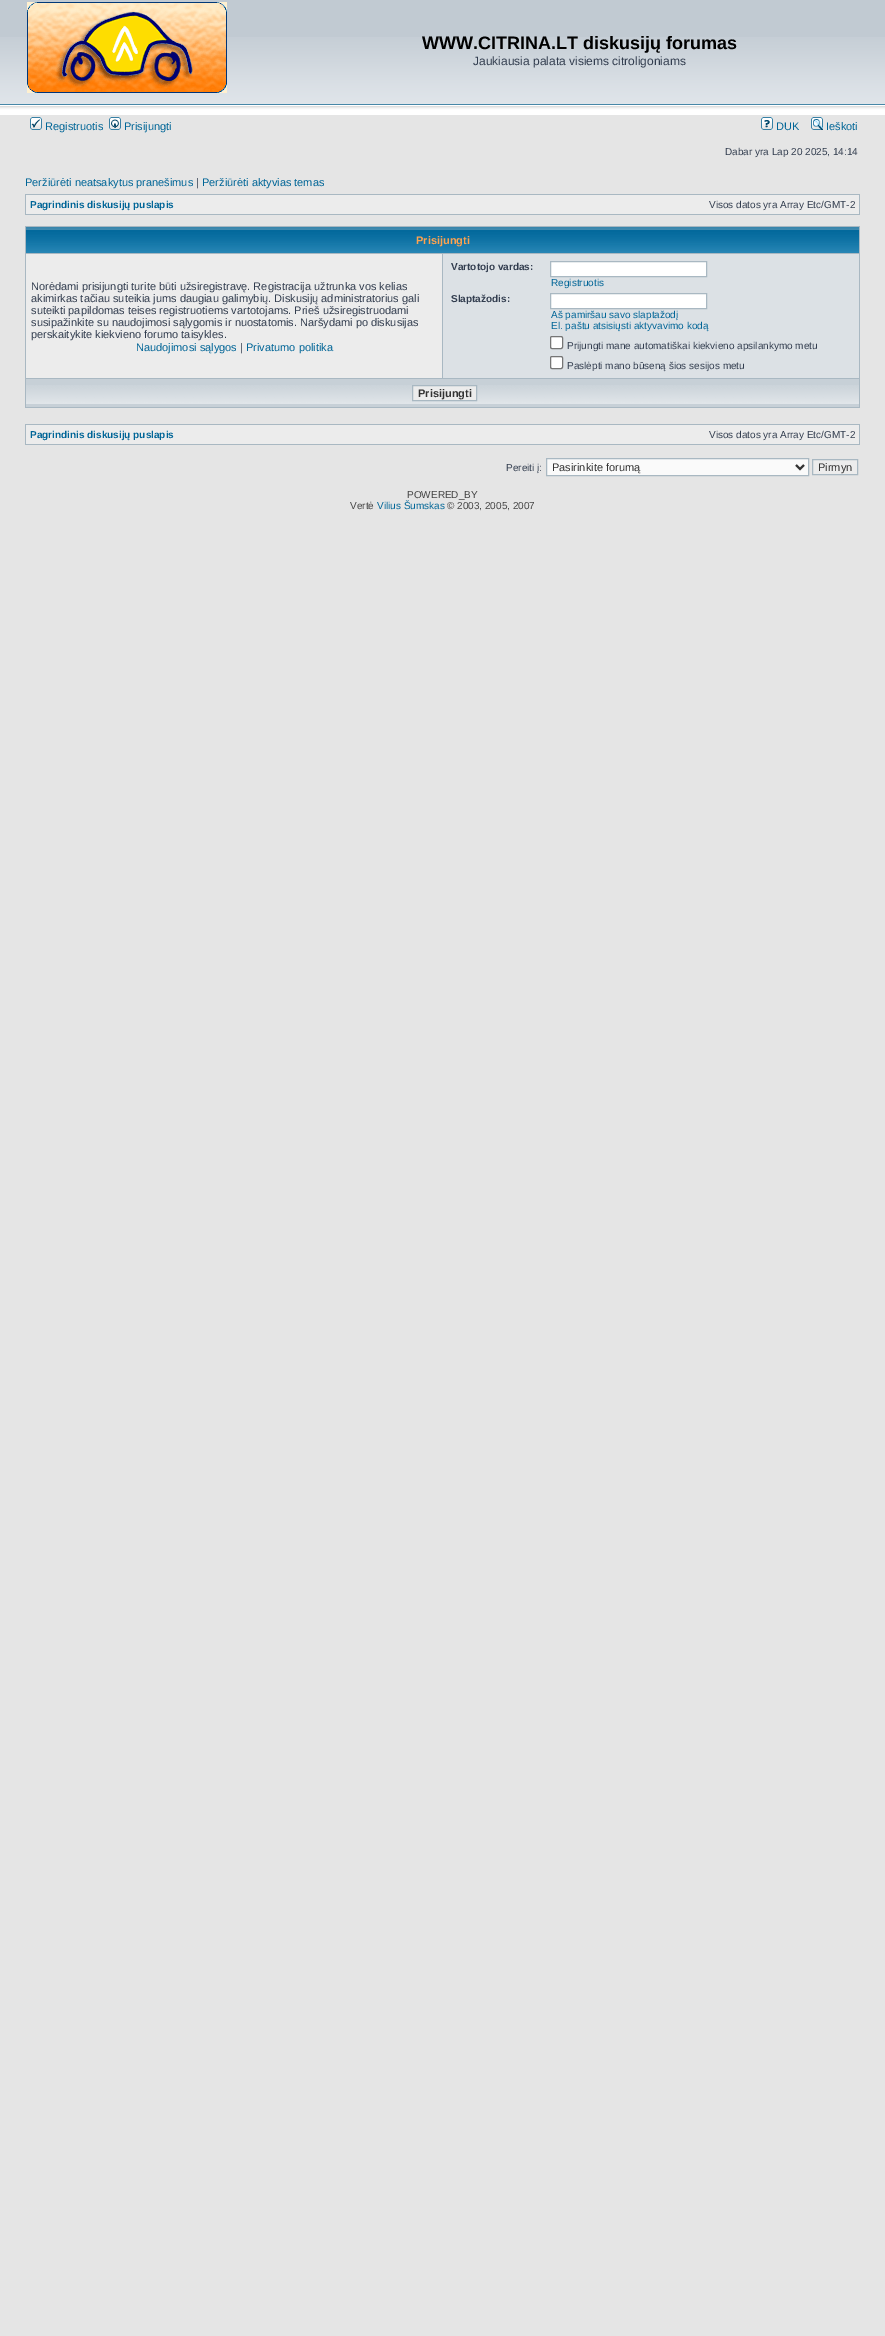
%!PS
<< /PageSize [885 2336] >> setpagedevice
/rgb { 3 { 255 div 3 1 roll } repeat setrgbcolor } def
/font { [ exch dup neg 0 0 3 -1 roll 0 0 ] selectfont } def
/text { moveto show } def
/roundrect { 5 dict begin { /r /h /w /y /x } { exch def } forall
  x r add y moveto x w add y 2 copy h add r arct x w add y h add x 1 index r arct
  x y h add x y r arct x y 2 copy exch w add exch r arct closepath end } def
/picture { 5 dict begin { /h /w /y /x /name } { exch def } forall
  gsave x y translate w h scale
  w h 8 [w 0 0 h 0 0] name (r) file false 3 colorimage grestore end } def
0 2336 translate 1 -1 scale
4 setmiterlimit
229 229 229 rgb
0 0 885 2336 rectfill
193 202 210 rgb
0 0 885 37 rectfill
(img_01.rgb) 0 37 885 78 picture
(img_02.rgb) 27 2 200 91 picture
(img_03.rgb) 30 117 12 13 picture
(img_04.rgb) 109 117 12 13 picture
(img_05.rgb) 761 117 12 13 picture
(img_06.rgb) 811 117 12 13 picture
169 184 194 rgb
25 194 835 21 rectfill
236 236 236 rgb
26 195 833 19 rectfill
169 184 194 rgb
25 226 835 182 rectfill
(img_07.rgb) 26 227 833 26 picture
236 236 236 rgb
26 254 416 124 rectfill
220 225 229 rgb
443 254 416 124 rectfill
255 255 255 rgb
550.5 261.5 moveto 156 0 rlineto 0 15 rlineto -156 0 rlineto closepath gsave fill grestore
169 184 194 rgb
stroke
255 255 255 rgb
550.5 293.5 moveto 156 0 rlineto 0 15 rlineto -156 0 rlineto closepath gsave fill grestore
169 184 194 rgb
stroke
255 255 255 rgb
550.5 336.5 12 12 1.5 roundrect gsave fill grestore
118 118 118 rgb
stroke
255 255 255 rgb
550.5 356.5 12 12 1.5 roundrect gsave fill grestore
118 118 118 rgb
stroke
199 208 215 rgb
26 379 833 28 rectfill
(img_08.rgb) 26 385 833 19 picture
236 236 236 rgb
412.5 385.5 moveto 64 0 rlineto 0 15 rlineto -64 0 rlineto closepath gsave fill grestore
169 184 194 rgb
stroke
25 424 835 21 rectfill
236 236 236 rgb
26 425 833 19 rectfill
250 250 250 rgb
546.5 458.5 moveto 262 0 rlineto 0 17 rlineto -262 0 rlineto closepath gsave fill grestore
169 184 194 rgb
stroke
51 51 51 rgb
2 setlinewidth
796 465 moveto 4 4 rlineto 4 -4 rlineto stroke
236 236 236 rgb
812.5 459.5 moveto 45 0 rlineto 0 15 rlineto -45 0 rlineto closepath gsave fill grestore
169 184 194 rgb
1 setlinewidth
stroke
/LiberationSans-Bold 18 font
0 0 0 rgb
(WWW.CITRINA.LT diskusijų forumas) 422 49 text
/LiberationSans-Regular 12 font
50 61 79 rgb
(Jaukiausia palata visiems citroligoniams) 473 65 text
/LiberationSans-Regular 11 font
0 101 151 rgb
(Registruotis) 45 130 text
(Prisijungti) 124 130 text
(DUK) 776 130 text
(Ieškoti) 826 130 text
/LiberationSans-Regular 10 font
50 61 79 rgb
(Dabar yra Lap 20 2025, 14:14) 725 155 text
/LiberationSans-Regular 11 font
0 101 151 rgb
(Peržiūrėti neatsakytus pranešimus) 25 186 text
50 61 79 rgb
(|) 196 186 text
0 101 151 rgb
(Peržiūrėti aktyvias temas) 202 186 text
/LiberationSans-Bold 10 font
(Pagrindinis diskusijų puslapis) 30 208 text
/LiberationSans-Regular 10 font
50 61 79 rgb
(Visos datos yra Array Etc/GMT-2) 709 208 text
/LiberationSans-Bold 11 font
255 163 79 rgb
(Prisijungti) 416 244 text
/LiberationSans-Regular 11 font
50 61 79 rgb
(Norėdami prisijungti turite būti užsiregistravę. Registracija užtrunka vos kelias) 31 290 text
(akimirkas tačiau suteikia jums daugiau galimybių. Diskusijų administratorius gali) 31 302 text
(suteikti papildomas teises registruotiems vartotojams. Prieš užsiregistruodami) 31 314 text
(susipažinkite su naudojimosi sąlygomis ir nuostatomis. Naršydami po diskusijas) 31 326 text
(perskaitykite kiekvieno forumo taisykles.) 31 338 text
0 101 151 rgb
(Naudojimosi sąlygos) 136 351 text
50 61 79 rgb
(|) 240 351 text
0 101 151 rgb
(Privatumo politika) 246 351 text
/LiberationSans-Bold 10 font
50 61 79 rgb
(Vartotojo vardas:) 451 270 text
/LiberationSans-Regular 10 font
0 101 151 rgb
(Registruotis) 551 286 text
/LiberationSans-Bold 10 font
50 61 79 rgb
(Slaptažodis:) 451 302 text
/LiberationSans-Regular 10 font
0 101 151 rgb
(Aš pamiršau savo slaptažodį) 551 318 text
(El. paštu atsisiųsti aktyvavimo kodą) 551 329 text
50 61 79 rgb
(Prijungti mane automatiškai kiekvieno apsilankymo metu) 567 349 text
(Paslėpti mano būseną šios sesijos metu) 567 369 text
/LiberationSans-Bold 11 font
51 51 51 rgb
(Prisijungti) 418 397 text
/LiberationSans-Bold 10 font
0 101 151 rgb
(Pagrindinis diskusijų puslapis) 30 438 text
/LiberationSans-Regular 10 font
50 61 79 rgb
(Visos datos yra Array Etc/GMT-2) 709 438 text
(Pereiti į:) 506 471 text
/LiberationSans-Regular 11 font
51 51 51 rgb
(Pasirinkite forumą) 552 471 text
(Pirmyn) 818 471 text
/LiberationSans-Regular 10 font
68 68 68 rgb
(POWERED_BY) 407 498 text
(Vertė) 350 509 text
0 101 151 rgb
(Vilius Šumskas) 377 509 text
68 68 68 rgb
(© 2003, 2005, 2007) 447 509 text
showpage
